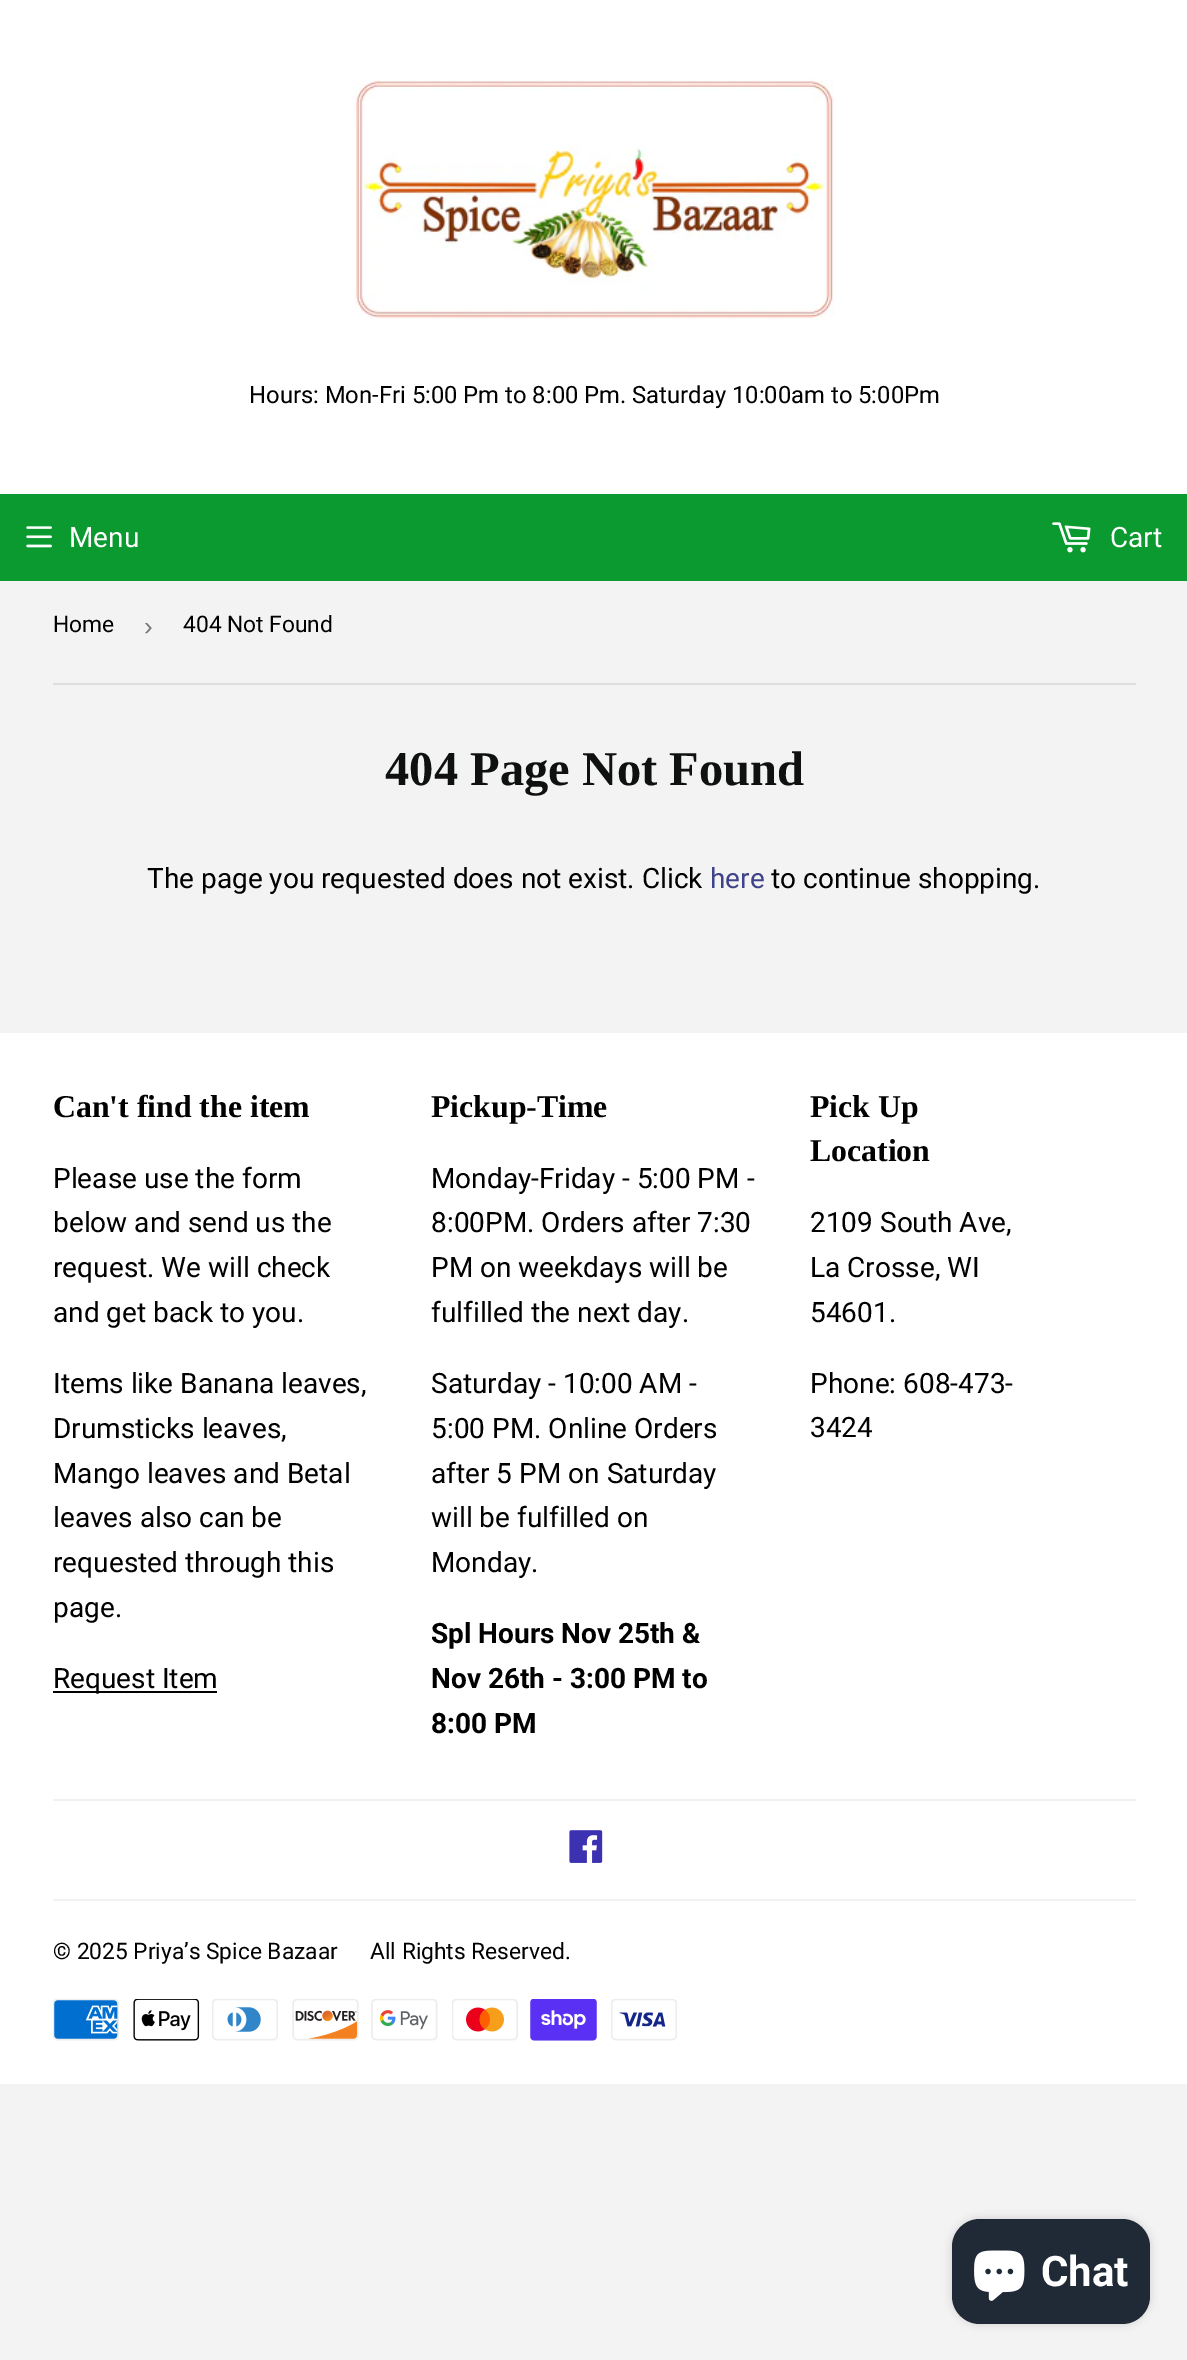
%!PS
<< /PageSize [1187 2360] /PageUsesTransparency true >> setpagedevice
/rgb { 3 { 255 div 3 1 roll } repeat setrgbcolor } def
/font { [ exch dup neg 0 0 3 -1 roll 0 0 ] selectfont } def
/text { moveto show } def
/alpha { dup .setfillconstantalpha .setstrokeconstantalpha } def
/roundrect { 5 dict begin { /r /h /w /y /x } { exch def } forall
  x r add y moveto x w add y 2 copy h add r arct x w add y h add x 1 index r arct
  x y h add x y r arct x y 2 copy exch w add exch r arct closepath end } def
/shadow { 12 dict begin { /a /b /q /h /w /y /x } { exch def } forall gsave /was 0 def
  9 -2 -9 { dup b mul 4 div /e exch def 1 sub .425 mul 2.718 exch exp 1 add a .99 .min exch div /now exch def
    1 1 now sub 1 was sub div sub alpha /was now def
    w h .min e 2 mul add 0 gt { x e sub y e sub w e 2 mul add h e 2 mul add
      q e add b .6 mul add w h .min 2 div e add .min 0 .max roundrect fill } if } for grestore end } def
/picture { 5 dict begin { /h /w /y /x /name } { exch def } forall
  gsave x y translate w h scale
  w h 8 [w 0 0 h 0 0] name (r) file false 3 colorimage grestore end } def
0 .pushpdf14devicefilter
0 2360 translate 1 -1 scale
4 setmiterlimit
243 243 243 rgb
0 0 1187 2360 rectfill
255 255 255 rgb
0 0 1187 494 rectfill
(img_01.rgb) 353 79 482 241 picture
11 154 48 rgb
0 494 1187 87 rectfill
(img_02.rgb) 26 526 26 22 picture
(img_03.rgb) 1052 522 39 31 picture
222 222 222 rgb
53 683 1083 2 rectfill
255 255 255 rgb
0 1033 1187 1051 rectfill
0 0 0 rgb
53 1691 164 2 rectfill
242 242 242 rgb
53 1799 1083 2 rectfill
(img_04.rgb) 569 1830 34 33 picture
53 1899 1083 2 rectfill
(img_05.rgb) 53 1999 66 42 picture
(img_06.rgb) 133 1999 67 42 picture
(img_07.rgb) 212 1999 66 42 picture
(img_08.rgb) 292 1999 67 42 picture
(img_09.rgb) 371 1999 67 42 picture
(img_10.rgb) 452 1999 66 42 picture
(img_11.rgb) 530 1999 67 42 picture
(img_12.rgb) 611 1999 66 42 picture
0 0 0 rgb
952 2219 198 105 28 4.5 0.15 shadow
32 42 54 rgb
952 2219 198 105 28 roundrect fill
(img_13.rgb) 974 2250 51 51 picture
/Roboto-Regular 23.8 font
0 0 0 rgb
(Hours: Mon-Fri 5:00 Pm to 8:00 Pm. Saturday 10:00am to 5:00Pm) 249 403 text
/Roboto-Regular 28 font
255 255 255 rgb
(Menu) 69 547 text
(Cart) 1110 547 text
/Roboto-Regular 22.75 font
0 0 0 rgb
(Home) 53 632 text
/LiberationSans-Regular 26 font
118 118 118 rgb
(›) 144 635 text
/Roboto-Regular 22.75 font
0 0 0 rgb
(404 Not Found) 183 632 text
/LiberationSerif-Bold 48.5 font
15 17 17 rgb
(404 Page Not Found) 385 785 text
/Roboto-Regular 28 font
0 0 0 rgb
(The page you requested does not exist. Click) 147 888 text
63 67 137 rgb
(here) 710 888 text
0 0 0 rgb
(to continue shopping.) 771 888 text
/LiberationSerif-Bold 31.75 font
(Can't find the item) 53 1117 text
/Roboto-Regular 28 font
(Please use the form) 53 1188 text
(below and send us the) 53 1232 text
(request. We will check) 53 1277 text
(and get back to you.) 53 1322 text
(Items like Banana leaves,) 53 1393 text
(Drumsticks leaves,) 53 1438 text
(Mango leaves and Betal) 53 1483 text
(leaves also can be) 53 1527 text
(requested through this) 53 1572 text
(page.) 53 1617 text
(Request Item) 53 1688 text
/LiberationSerif-Bold 31.75 font
(Pickup-Time) 431 1117 text
/Roboto-Regular 28 font
(Monday-Friday - 5:00 PM -) 431 1188 text
(8:00PM. Orders after 7:30) 431 1232 text
(PM on weekdays will be) 431 1277 text
(fulfilled the next day.) 431 1322 text
(Saturday - 10:00 AM -) 431 1393 text
(5:00 PM. Online Orders) 431 1438 text
(after 5 PM on Saturday) 431 1483 text
(will be fulfilled on) 431 1527 text
(Monday.) 431 1572 text
/Roboto-Bold 28 font
(Spl Hours Nov 25th &) 431 1643 text
(Nov 26th - 3:00 PM to) 431 1688 text
(8:00 PM) 431 1733 text
/LiberationSerif-Bold 31.75 font
(Pick Up) 810 1117 text
(Location) 810 1161 text
/Roboto-Regular 28 font
(2109 South Ave,) 810 1232 text
(La Crosse, WI) 810 1277 text
(54601.) 810 1322 text
(Phone: 608-473-) 810 1393 text
(3424) 810 1437 text
/Roboto-Regular 22.75 font
(© 2025 Priya’s Spice Bazaar) 53 1959 text
(All Rights Reserved.) 370 1959 text
/Roboto-Bold 42 font
255 255 255 rgb
(Chat) 1041 2286 text
.poppdf14devicefilter showpage
